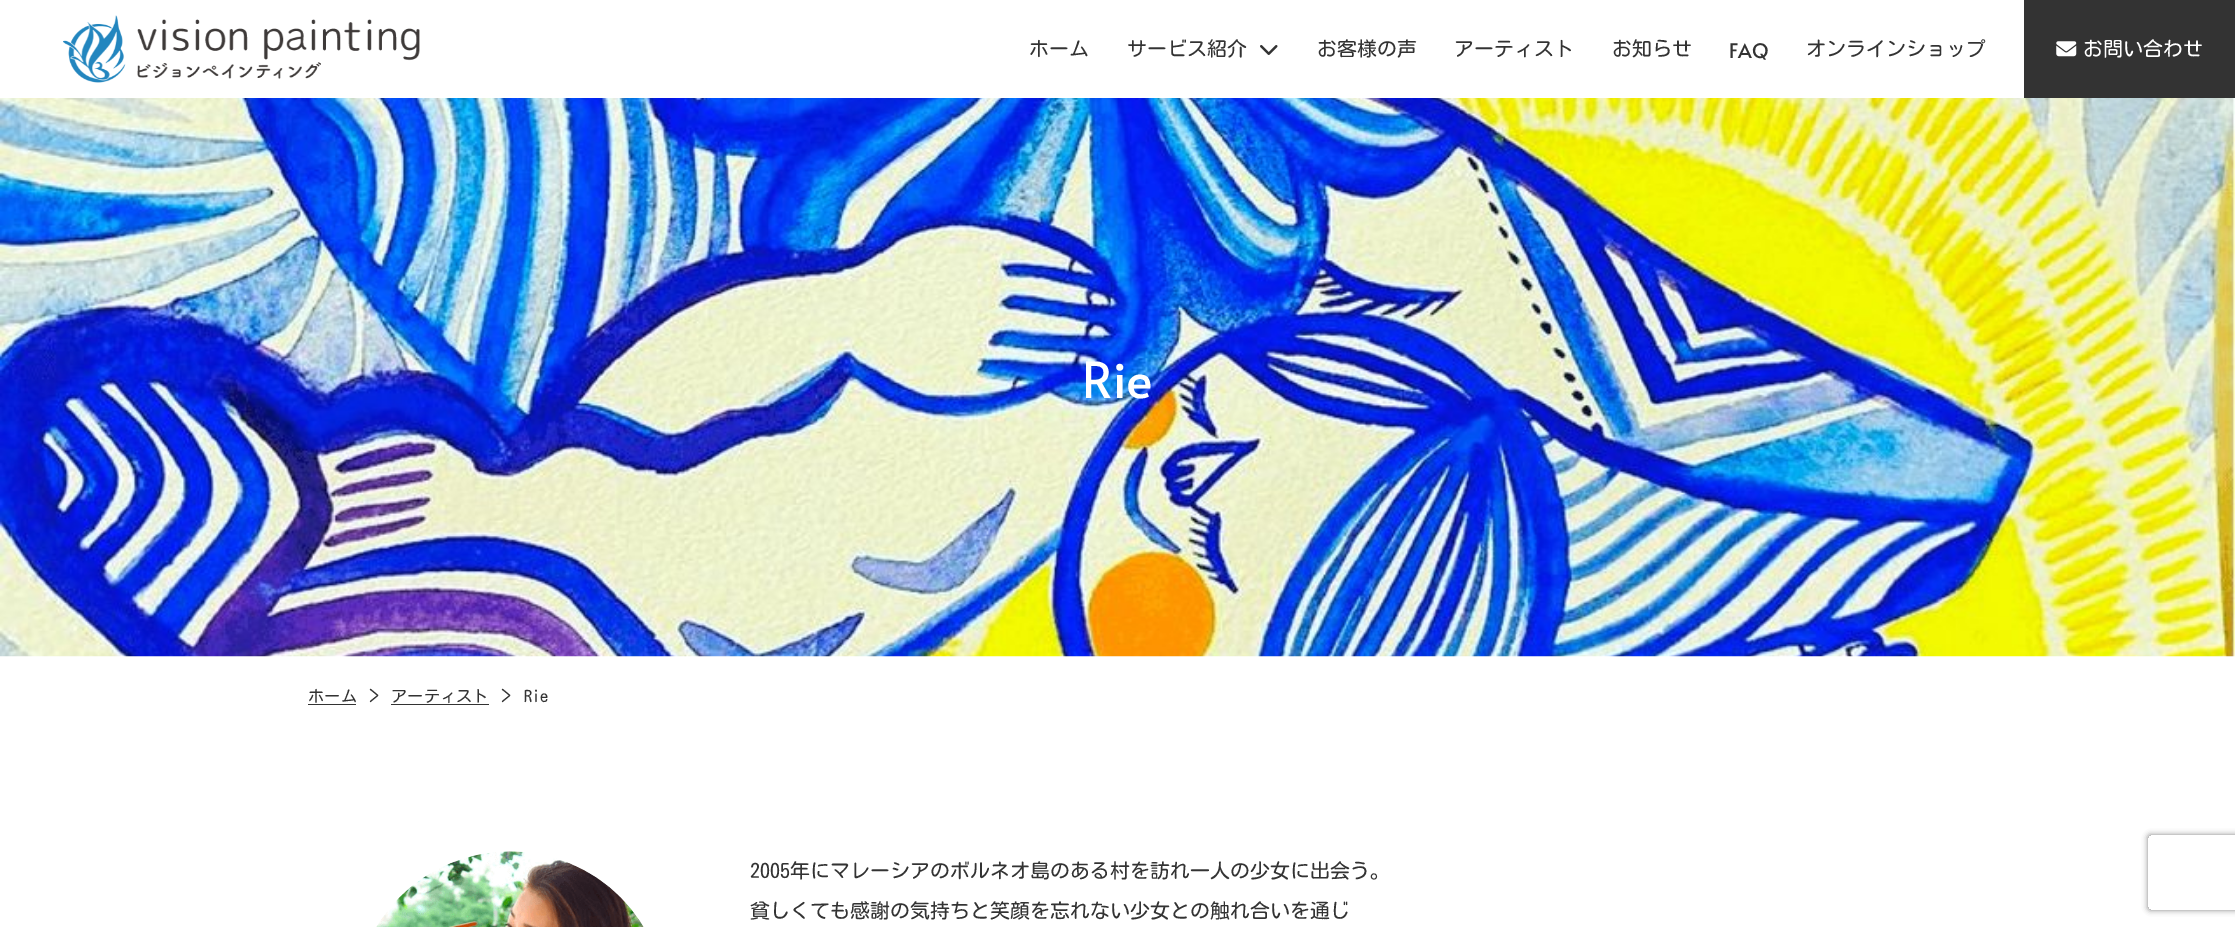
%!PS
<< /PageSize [2235 927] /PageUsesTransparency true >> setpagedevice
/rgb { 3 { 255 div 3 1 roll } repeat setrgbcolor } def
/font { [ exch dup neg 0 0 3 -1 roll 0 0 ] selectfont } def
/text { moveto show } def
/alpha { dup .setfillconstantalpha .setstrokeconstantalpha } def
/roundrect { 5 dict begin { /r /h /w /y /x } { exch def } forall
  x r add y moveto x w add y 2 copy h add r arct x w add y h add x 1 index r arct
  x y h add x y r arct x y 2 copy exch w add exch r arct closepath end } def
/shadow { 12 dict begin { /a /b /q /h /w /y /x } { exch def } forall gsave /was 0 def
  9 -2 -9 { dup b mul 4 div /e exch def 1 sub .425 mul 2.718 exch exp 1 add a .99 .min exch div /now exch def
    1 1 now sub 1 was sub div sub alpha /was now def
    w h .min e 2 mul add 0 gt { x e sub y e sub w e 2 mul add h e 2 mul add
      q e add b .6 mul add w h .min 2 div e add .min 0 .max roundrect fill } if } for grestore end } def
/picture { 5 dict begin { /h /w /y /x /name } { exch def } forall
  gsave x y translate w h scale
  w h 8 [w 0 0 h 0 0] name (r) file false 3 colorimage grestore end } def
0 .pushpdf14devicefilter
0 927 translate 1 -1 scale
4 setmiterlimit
255 255 255 rgb
0 0 2235 927 rectfill
(img_01.rgb) 63 15 357 68 picture
(img_02.rgb) 1260 45 18 10 picture
51 51 51 rgb
2024 0 211 98 rectfill
(img_03.rgb) 2056 41 21 16 picture
(img_04.rgb) 0 98 2235 559 picture
308 704 48 1 rectfill
391 704 98 1 rectfill
(img_05.rgb) 376 851 268 76 picture
gsave
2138 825 moveto 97 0 rlineto 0 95 rlineto -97 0 rlineto closepath 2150.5 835 moveto 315 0 rlineto 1.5 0 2.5 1 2.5 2.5 rcurveto 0 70 rlineto 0 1.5 -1 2.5 -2.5 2.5 rcurveto -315 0 rlineto -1.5 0 -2.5 -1 -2.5 -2.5 rcurveto 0 -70 rlineto 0 -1.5 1 -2.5 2.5 -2.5 rcurveto closepath eoclip newpath
128 128 128 rgb
2148 835 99 75 2.5 3 1 shadow
grestore
/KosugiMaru-Regular 20 font
(ホーム) 1029 56 text
(サービス紹介) 1127 56 text
(お客様の声) 1317 56 text
(アーティスト) 1454 56 text
(お知らせ) 1612 56 text
/Alata-Regular 20 font
(FAQ) 1729 58 text
/KosugiMaru-Regular 20 font
(オンラインショップ) 1806 56 text
255 255 255 rgb
(お問い合わせ) 2083 56 text
/Alata-Regular 50 font
(Rie) 1082 398 text
/KosugiMaru-Regular 16.25 font
51 51 51 rgb
(ホーム) 308 702 text
/KosugiMaru-Regular 20 font
(>) 369 703 text
/KosugiMaru-Regular 16.25 font
(アーティスト) 391 702 text
/KosugiMaru-Regular 20 font
(>) 501 703 text
/KosugiMaru-Regular 16.25 font
(Rie) 524 702 text
/KosugiMaru-Regular 20 font
(2005年にマレーシアのボルネオ島のある村を訪れ一人の少女に出会う。) 750 878 text
(貧しくても感謝の気持ちと笑顔を忘れない少女との触れ合いを通じ) 750 918 text
.poppdf14devicefilter showpage
